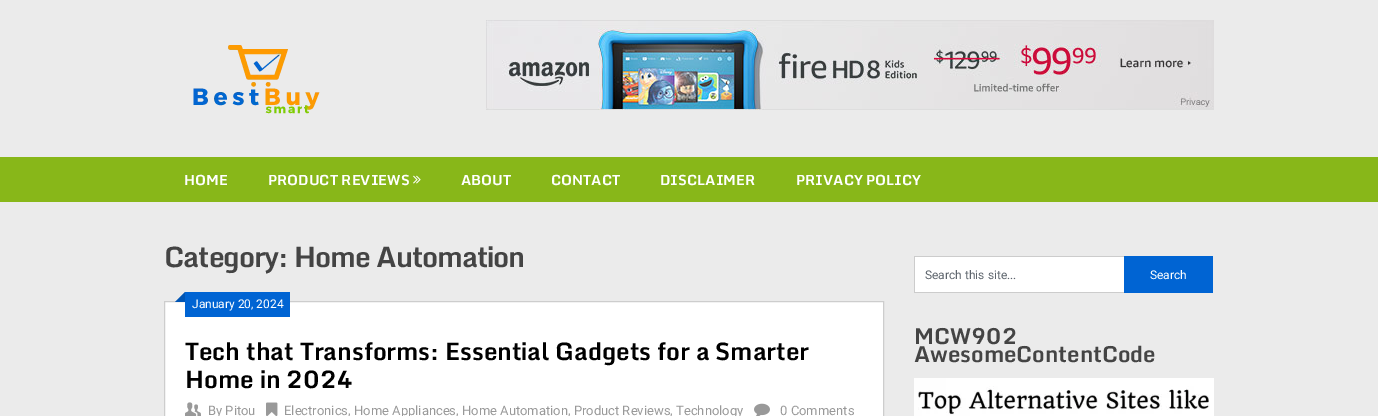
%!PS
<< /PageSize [1378 416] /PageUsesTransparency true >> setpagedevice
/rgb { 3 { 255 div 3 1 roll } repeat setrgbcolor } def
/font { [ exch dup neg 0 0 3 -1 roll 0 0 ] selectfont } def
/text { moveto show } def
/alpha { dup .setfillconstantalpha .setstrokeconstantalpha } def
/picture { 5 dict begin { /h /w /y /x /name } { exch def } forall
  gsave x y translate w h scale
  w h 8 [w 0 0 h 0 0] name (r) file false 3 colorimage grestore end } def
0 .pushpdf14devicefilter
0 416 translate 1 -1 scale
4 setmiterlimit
235 235 235 rgb
0 0 1378 416 rectfill
(img_01.rgb) 193 45 127 69 picture
(img_02.rgb) 486 20 728 90 picture
136 183 25 rgb
0 157 1378 45 rectfill
(img_03.rgb) 413 175 8 9 picture
255 255 255 rgb
164.5 301.5 moveto 719 0 rlineto 0 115 rlineto -719 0 rlineto closepath gsave fill grestore
205 205 205 rgb
stroke
0 100 211 rgb
185 292 105 25 rectfill
185 302 moveto -10 0 rlineto 10 -10 rlineto closepath fill
0.15 alpha
0 0 0 rgb
185 302 moveto -10 0 rlineto 10 -10 rlineto closepath fill
1 alpha
(img_04.rgb) 185 402 16 14 picture
(img_05.rgb) 266 402 12 14 picture
(img_06.rgb) 754 403 16 13 picture
255 255 255 rgb
915 257 209 35 rectfill
204 204 204 rgb
914 256 210 1 rectfill
914 292 210 1 rectfill
914 256 1 37 rectfill
0 100 211 rgb
1124 256 89 37 rectfill
(img_07.rgb) 914 378 300 38 picture
/Monda-Bold 14 font
255 255 255 rgb
(HOME) 184 185 text
(PRODUCT REVIEWS) 268 185 text
(ABOUT) 461 185 text
(CONTACT) 551 185 text
(DISCLAIMER) 660 185 text
(PRIVACY POLICY) 796 185 text
/Monda-Bold 28 font
68 68 68 rgb
164 267 moveto -1 0 (Category: Home Automation) ashow
/Roboto-Regular 12 font
255 255 255 rgb
(January 20, 2024) 192 308 text
/Monda-Bold 24 font
0 0 0 rgb
(Tech that Transforms: Essential Gadgets for a Smarter) 185 360 text
(Home in 2024) 185 388 text
/Roboto-Regular 13 font
153 153 153 rgb
(By Pitou) 208 415 text
(Electronics, Home Appliances, Home Automation, Product Reviews, Technology) 284 415 text
(0 Comments) 780 415 text
/Roboto-Regular 12 font
94 101 109 rgb
(Search this site...) 925 279 text
255 255 255 rgb
(Search) 1150 279 text
/Monda-Bold 22 font
68 68 68 rgb
(MCW902) 914 344 text
(AwesomeContentCode) 914 362 text
.poppdf14devicefilter showpage
